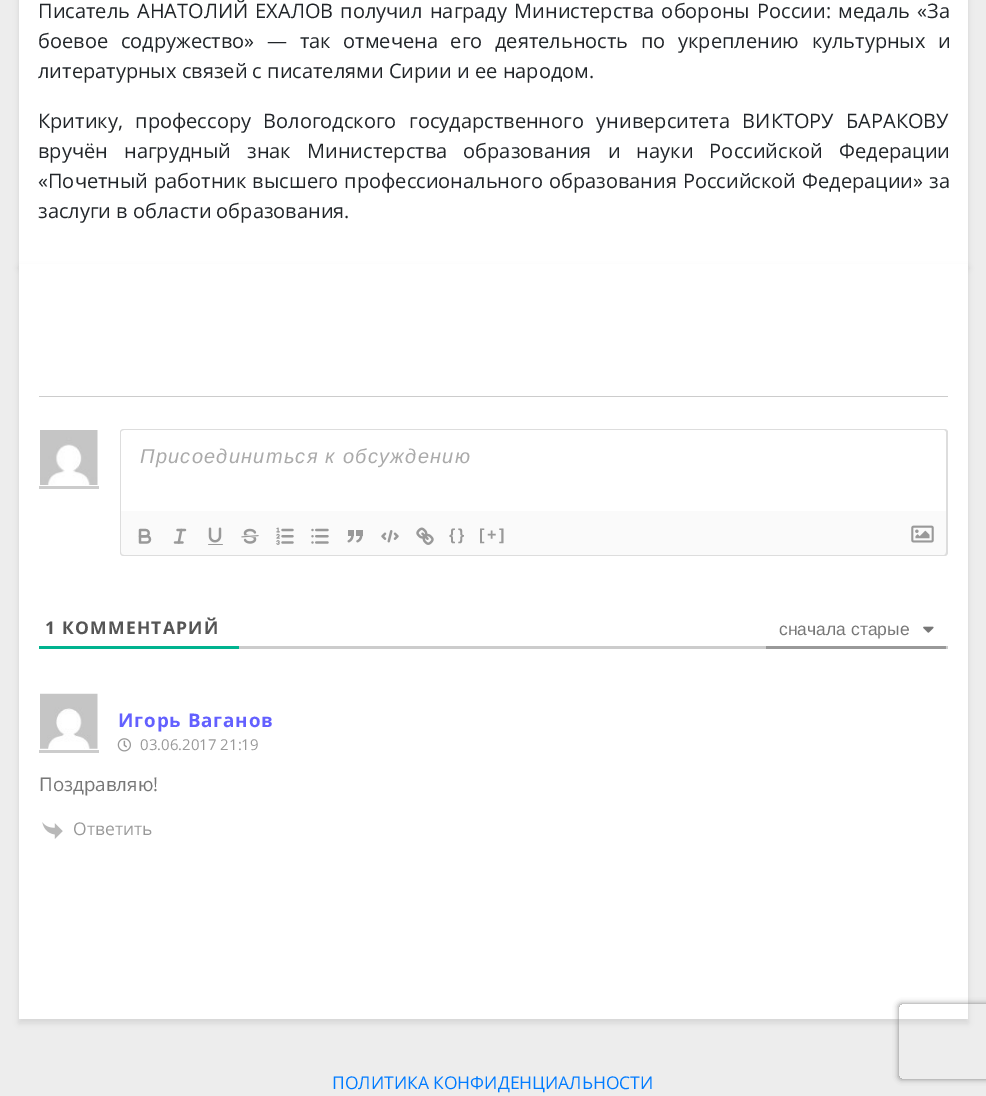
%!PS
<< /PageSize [986 1096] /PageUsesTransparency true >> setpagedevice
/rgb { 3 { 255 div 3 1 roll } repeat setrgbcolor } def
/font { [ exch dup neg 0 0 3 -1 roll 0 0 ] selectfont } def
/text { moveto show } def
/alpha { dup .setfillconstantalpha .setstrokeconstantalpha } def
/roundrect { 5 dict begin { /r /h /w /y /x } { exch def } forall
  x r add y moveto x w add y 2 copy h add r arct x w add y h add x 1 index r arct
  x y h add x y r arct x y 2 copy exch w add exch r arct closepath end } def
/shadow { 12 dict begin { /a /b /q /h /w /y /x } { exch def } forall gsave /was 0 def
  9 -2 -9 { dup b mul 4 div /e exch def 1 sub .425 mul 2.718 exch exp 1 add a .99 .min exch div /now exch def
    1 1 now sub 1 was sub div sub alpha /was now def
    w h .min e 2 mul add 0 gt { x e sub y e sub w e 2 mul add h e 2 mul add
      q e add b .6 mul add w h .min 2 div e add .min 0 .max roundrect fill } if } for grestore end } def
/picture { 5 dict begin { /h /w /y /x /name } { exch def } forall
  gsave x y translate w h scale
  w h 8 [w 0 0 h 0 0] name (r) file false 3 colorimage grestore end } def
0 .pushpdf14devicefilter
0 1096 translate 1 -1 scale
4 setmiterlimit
237 237 237 rgb
0 0 986 1096 rectfill
0 0 0 rgb
19 -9 949 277 0 3 0.1 shadow
255 255 255 rgb
19 0 949 264 rectfill
0 0 0 rgb
19 268 949 755 0 3 0.1 shadow
255 255 255 rgb
19 264 949 755 rectfill
204 204 204 rgb
39 396 909 1 rectfill
(img_01.rgb) 40 430 58 55 picture
39 486 60 3 rectfill
221 221 221 rgb
124 429 moveto 820 0 rlineto 2 0 4 1 4 3 rcurveto 0 79 rlineto -828 0 rlineto 0 -79 rlineto 0 -2 2 -3 4 -3 rcurveto closepath 124 430 moveto 820 0 rlineto 1 0 2 1 2 2 rcurveto 0 79 rlineto -825 0 rlineto 0 -79 rlineto 0 -1 1 -2 3 -2 rcurveto closepath eofill
250 250 250 rgb
120 511 moveto 828 0 rlineto 0 41 rlineto 0 2 -2 4 -4 4 rcurveto -820 0 rlineto -2 0 -4 -2 -4 -4 rcurveto closepath fill
221 221 221 rgb
120 511 moveto 828 0 rlineto 0 41 rlineto 0 3 -2 4 -4 4 rcurveto -820 0 rlineto -2 0 -4 -1 -4 -4 rcurveto closepath 121 511 moveto 825 0 rlineto 0 41 rlineto 0 2 -1 3 -2 3 rcurveto -820 0 rlineto -2 0 -3 -1 -3 -3 rcurveto closepath eofill
(img_02.rgb) 138 528 14 16 picture
(img_03.rgb) 173 528 14 16 picture
(img_04.rgb) 208 527 15 18 picture
(img_05.rgb) 241 528 18 16 picture
(img_06.rgb) 276 527 18 18 picture
(img_07.rgb) 311 528 18 16 picture
(img_08.rgb) 347 530 16 13 picture
(img_09.rgb) 381 530 18 13 picture
(img_10.rgb) 416 527 18 18 picture
(img_11.rgb) 911 525 23 18 picture
204 204 204 rgb
239 646 709 3 rectfill
0 179 143 rgb
39 646 200 3 rectfill
153 153 153 rgb
766 646 180 3 rectfill
(img_12.rgb) 923 626 11 7 picture
(img_13.rgb) 40 693 58 56 picture
204 204 204 rgb
39 750 60 3 rectfill
(img_14.rgb) 117 738 14 14 picture
(img_15.rgb) 42 822 21 17 picture
gsave
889 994 moveto 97 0 rlineto 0 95 rlineto -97 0 rlineto closepath 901.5 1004 moveto 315 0 rlineto 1.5 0 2.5 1 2.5 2.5 rcurveto 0 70 rlineto 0 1.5 -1 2.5 -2.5 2.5 rcurveto -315 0 rlineto -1.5 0 -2.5 -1 -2.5 -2.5 rcurveto 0 -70 rlineto 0 -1.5 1 -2.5 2.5 -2.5 rcurveto closepath eoclip newpath
128 128 128 rgb
899 1004 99 75 2.5 3 1 shadow
grestore
/OpenSans-Regular 20 font
33 37 41 rgb
38 18 moveto 2 0 32 (Писатель АНАТОЛИЙ ЕХАЛОВ получил награду Министерства обороны России: медаль «За) widthshow
38 48 moveto 7.5 0 32 (боевое содружество» — так отмечена его деятельность по укреплению культурных и) widthshow
(литературных связей с писателями Сирии и ее народом.) 38 78 text
38 128 moveto 7.25 0 32 (Критику, профессору Вологодского государственного университета ВИКТОРУ БАРАКОВУ) widthshow
38 158 moveto 11 0 32 (вручён нагрудный знак Министерства образования и науки Российской Федерации) widthshow
38 188 moveto 0.75 0 32 («Почетный работник высшего профессионального образования Российской Федерации» за) widthshow
(заслуги в области образования.) 38 218 text
/LiberationSans-Italic 20 font
170 170 170 rgb
140 463 moveto 1.25 0 (Присоединиться к обсуждению) ashow
/LiberationSans-Bold 16 font
153 153 153 rgb
449 540 moveto 2.5 0 ({}) ashow
479 540 moveto 2.5 0 ([+]) ashow
/OpenSans-Bold 17.5 font
85 85 85 rgb
45 634 moveto 1.25 0 (1 КОММЕНТАРИЙ) ashow
/LiberationSans-Regular 17.5 font
119 119 119 rgb
(сначала старые) 779 635 text
/OpenSans-Bold 18.75 font
99 96 255 rgb
118 727 moveto 0.9 0 (Игорь Ваганов) ashow
/OpenSans-Regular 15 font
153 153 153 rgb
(03.06.2017 21:19) 140 750 text
/OpenSans-Regular 18.75 font
119 119 119 rgb
(Поздравляю!) 39 791 text
/OpenSans-Regular 17.5 font
153 153 153 rgb
(Ответить) 73 835 text
0 123 255 rgb
(ПОЛИТИКА КОНФИДЕНЦИАЛЬНОСТИ) 332 1089 text
.poppdf14devicefilter showpage
